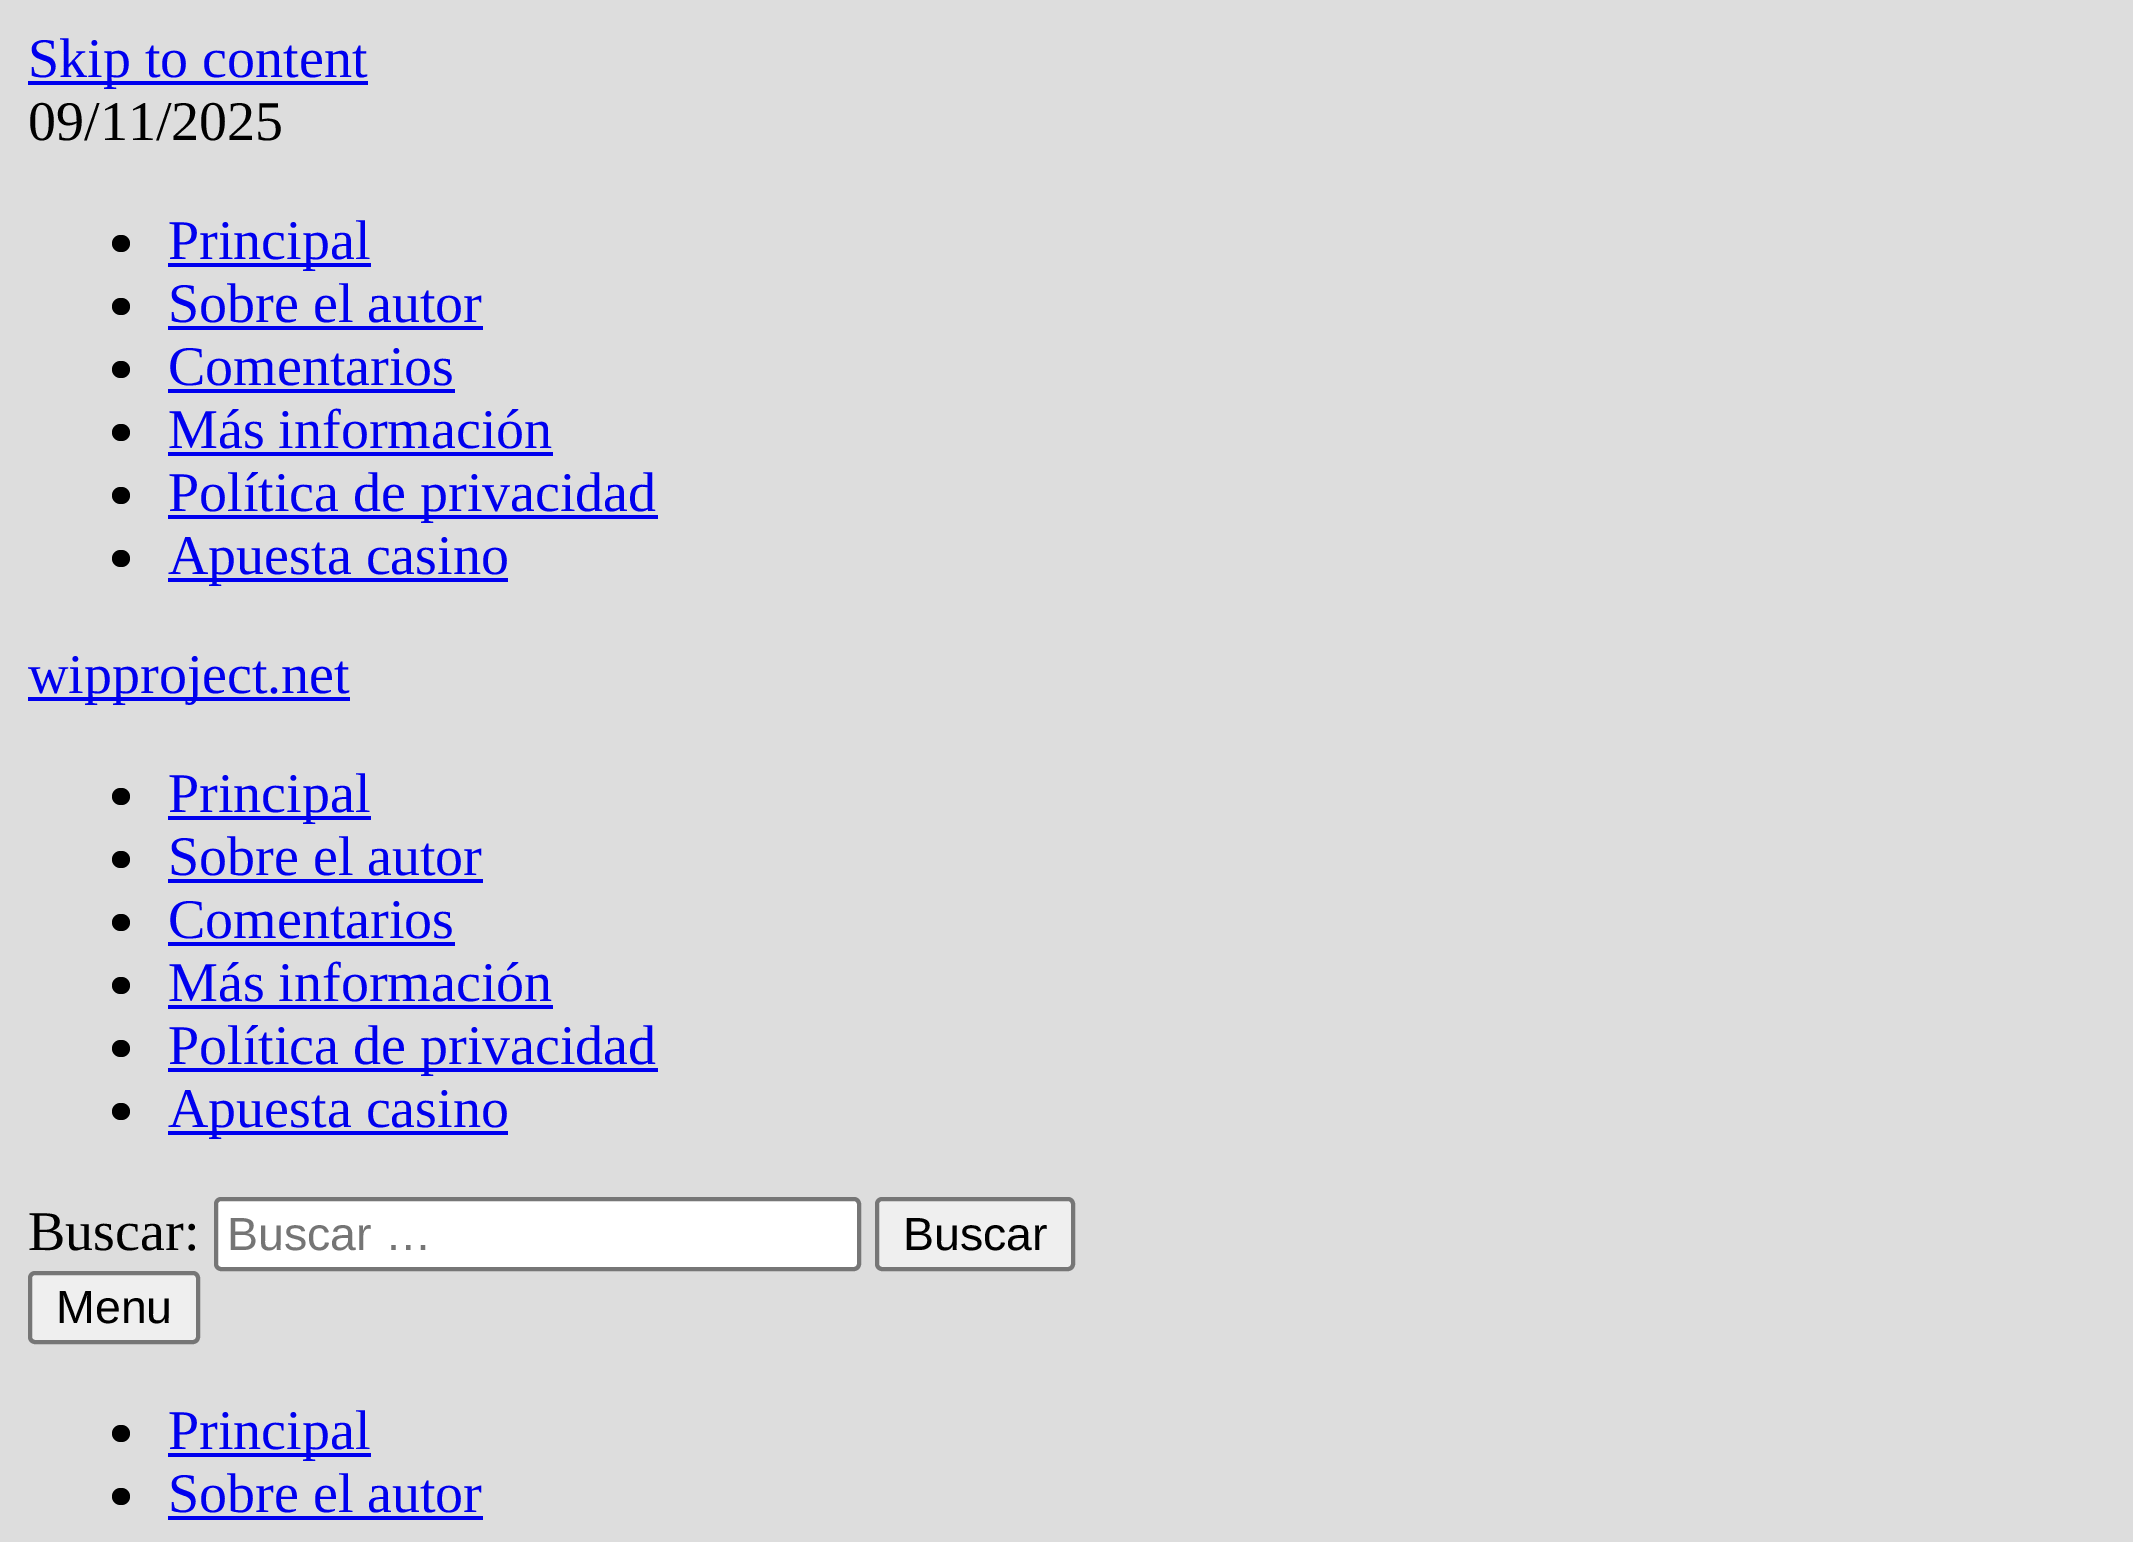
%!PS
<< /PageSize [2133 1542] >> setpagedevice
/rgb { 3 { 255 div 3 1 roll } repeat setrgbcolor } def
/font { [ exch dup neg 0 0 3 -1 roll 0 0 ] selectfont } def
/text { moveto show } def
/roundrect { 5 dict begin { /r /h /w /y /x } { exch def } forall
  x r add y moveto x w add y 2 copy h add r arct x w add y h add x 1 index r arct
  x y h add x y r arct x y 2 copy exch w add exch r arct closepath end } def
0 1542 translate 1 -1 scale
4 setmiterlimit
221 221 221 rgb
0 0 2133 1542 rectfill
0 0 238 rgb
28 81 340 4 rectfill
0 0 0 rgb
112 235 18 17 8.5 roundrect fill
0 0 238 rgb
168 263 203 4 rectfill
0 0 0 rgb
112 298 18 17 8.5 roundrect fill
0 0 238 rgb
168 326 315 4 rectfill
0 0 0 rgb
112 361 18 17 8.5 roundrect fill
0 0 238 rgb
168 389 287 4 rectfill
0 0 0 rgb
112 424 18 17 8.5 roundrect fill
0 0 238 rgb
168 452 385 4 rectfill
0 0 0 rgb
112 487 18 17 8.5 roundrect fill
0 0 238 rgb
168 515 490 4 rectfill
0 0 0 rgb
112 550 18 17 8.5 roundrect fill
0 0 238 rgb
168 578 340 4 rectfill
28 697 322 4 rectfill
0 0 0 rgb
112 788 18 17 8.5 roundrect fill
0 0 238 rgb
168 816 203 4 rectfill
0 0 0 rgb
112 851 18 17 8.5 roundrect fill
0 0 238 rgb
168 879 315 4 rectfill
0 0 0 rgb
112 914 18 17 8.5 roundrect fill
0 0 238 rgb
168 942 287 4 rectfill
0 0 0 rgb
112 977 18 17 8.5 roundrect fill
0 0 238 rgb
168 1005 385 4 rectfill
0 0 0 rgb
112 1040 18 17 8.5 roundrect fill
0 0 238 rgb
168 1068 490 4 rectfill
0 0 0 rgb
112 1103 18 17 8.5 roundrect fill
0 0 238 rgb
168 1131 340 4 rectfill
255 255 255 rgb
216 1199 643 70 5 roundrect gsave fill grestore
118 118 118 rgb
4 setlinewidth
stroke
239 239 239 rgb
877 1199 196 70 5 roundrect gsave fill grestore
118 118 118 rgb
stroke
239 239 239 rgb
30 1273 168 69 5 roundrect gsave fill grestore
118 118 118 rgb
stroke
0 0 0 rgb
112 1425 18 17 8.5 roundrect fill
0 0 238 rgb
168 1453 203 4 rectfill
0 0 0 rgb
112 1488 18 17 8.5 roundrect fill
0 0 238 rgb
168 1516 315 4 rectfill
/LiberationSerif-Regular 56 font
(Skip to content) 28 77 text
0 0 0 rgb
(09/11/2025) 28 140 text
0 0 238 rgb
(Principal) 168 259 text
(Sobre el autor) 168 322 text
(Comentarios) 168 385 text
(Más información) 168 448 text
(Política de privacidad) 168 511 text
(Apuesta casino) 168 574 text
(wipproject.net) 28 693 text
(Principal) 168 812 text
(Sobre el autor) 168 875 text
(Comentarios) 168 938 text
(Más información) 168 1001 text
(Política de privacidad) 168 1064 text
(Apuesta casino) 168 1127 text
0 0 0 rgb
(Buscar:) 28 1250 text
/LiberationSans-Regular 46.5 font
117 117 117 rgb
(Buscar …) 227 1250 text
0 0 0 rgb
(Buscar) 903 1250 text
(Menu) 56 1323 text
/LiberationSerif-Regular 56 font
0 0 238 rgb
(Principal) 168 1449 text
(Sobre el autor) 168 1512 text
showpage
